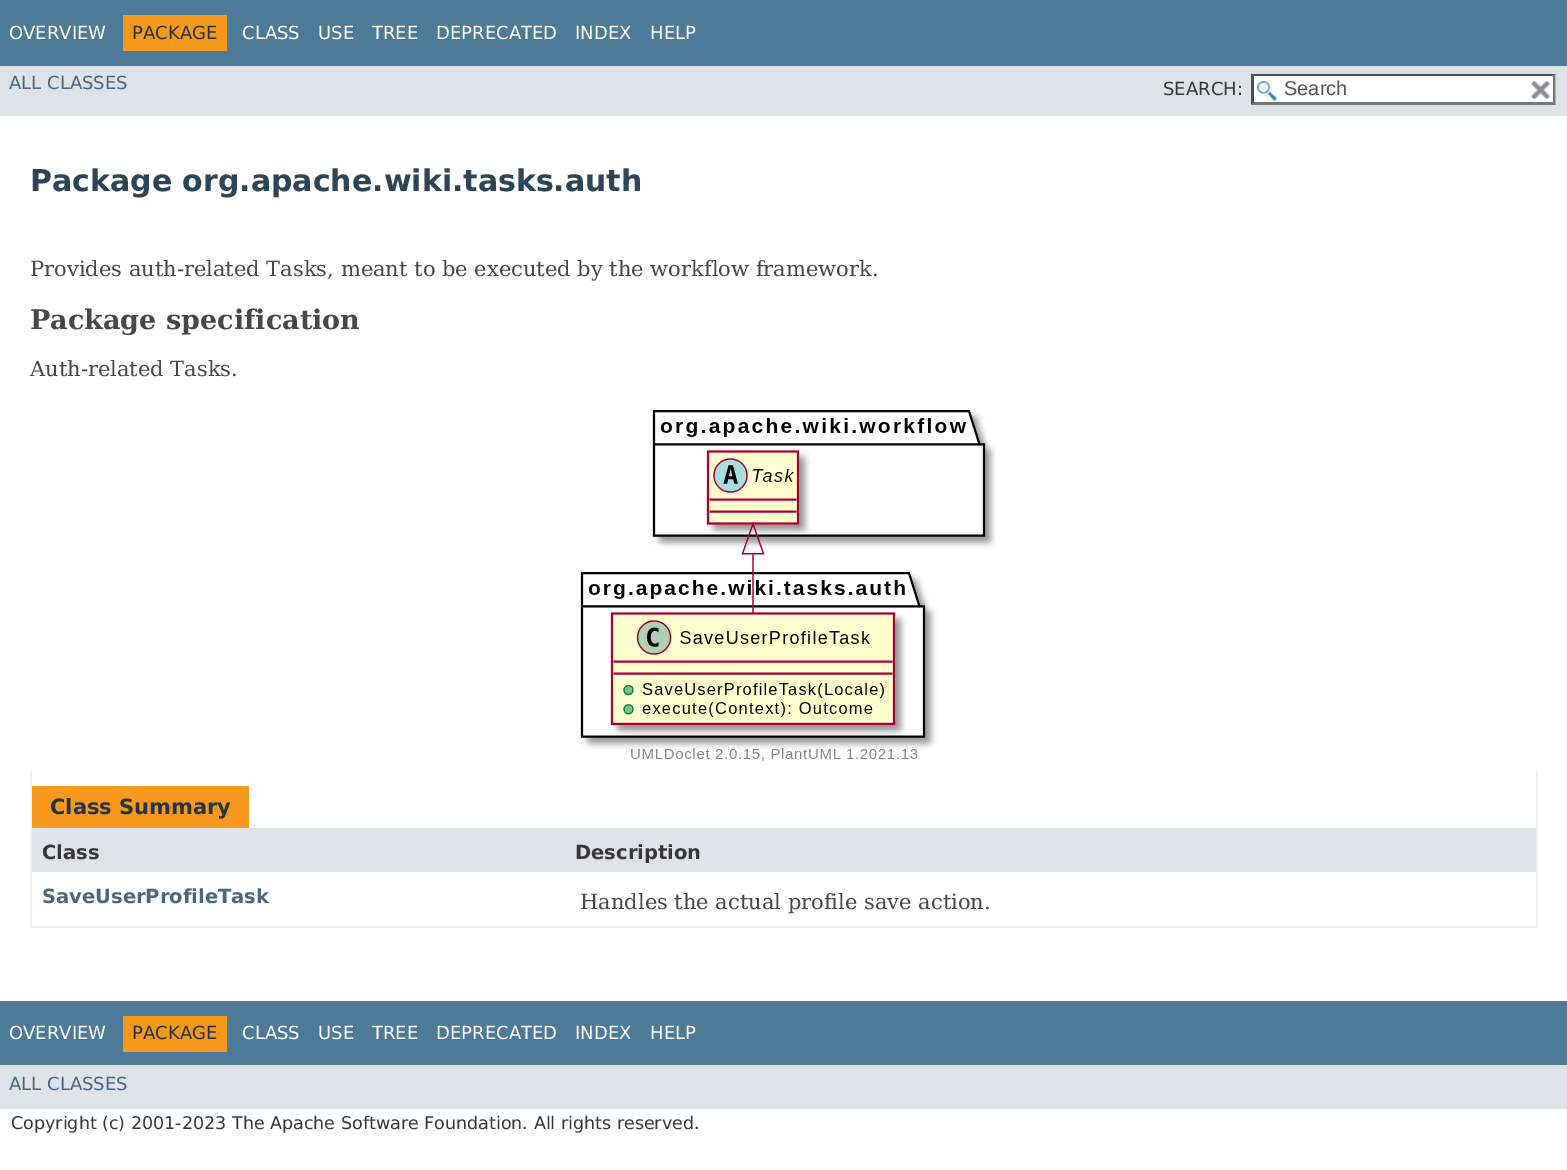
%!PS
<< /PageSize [1567 1170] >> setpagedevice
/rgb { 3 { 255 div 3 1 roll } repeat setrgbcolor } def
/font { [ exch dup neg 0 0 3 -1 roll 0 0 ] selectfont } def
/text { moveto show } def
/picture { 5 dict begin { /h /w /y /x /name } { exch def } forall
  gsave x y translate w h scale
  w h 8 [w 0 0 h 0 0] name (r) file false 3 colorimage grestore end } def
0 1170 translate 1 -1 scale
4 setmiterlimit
255 255 255 rgb
0 0 1567 1170 rectfill
77 122 151 rgb
0 0 1567 66 rectfill
248 152 29 rgb
123 15 104 36 rectfill
222 227 233 rgb
0 66 1567 50 rectfill
255 255 255 rgb
1251 74 305 31 rectfill
(img_01.rgb) 1257 81 20 20 picture
79 79 79 rgb
1251 74 moveto 305 0 rlineto -4 2 rlineto -298 0 rlineto closepath fill
118 118 118 rgb
1555.5 73.5 moveto 0 31.5 rlineto -3 -3 rlineto 0 -25.5 rlineto closepath fill
1556 105 moveto -305 0 rlineto 3 -3 rlineto 298 0 rlineto closepath fill
79 79 79 rgb
1251 105 moveto 0 -31.5 rlineto 3 3 rlineto 0 25.5 rlineto closepath fill
255 255 255 rgb
1552 77 1 25 rectfill
(img_02.rgb) 1530 81 20 19 picture
(img_03.rgb) 580 410 416 351 picture
238 238 238 rgb
1536 771 2 156 rectfill
30 926 1508 2 rectfill
30 771 2 156 rectfill
248 152 29 rgb
32 786 217 42 rectfill
222 227 233 rgb
32 828 1504 44 rectfill
77 122 151 rgb
0 1001 1567 64 rectfill
248 152 29 rgb
123 1016 104 36 rectfill
222 227 233 rgb
0 1065 1567 44 rectfill
/DejaVuSans-Regular 18 font
255 255 255 rgb
(OVERVIEW) 9 39 text
37 52 65 rgb
(PACKAGE) 132 39 text
255 255 255 rgb
(CLASS) 242 39 text
(USE) 318 39 text
(TREE) 372 39 text
(DEPRECATED) 436 39 text
(INDEX) 575 39 text
(HELP) 650 39 text
74 103 130 rgb
(ALL CLASSES) 9 89 text
53 56 51 rgb
(SEARCH:) 1163 95 text
/LiberationSans-Regular 20 font
84 84 84 rgb
(Search) 1284 95 text
/DejaVuSans-Bold 30 font
44 69 87 rgb
(Package org.apache.wiki.tasks.auth) 30 191 text
/DejaVuSerif-Regular 21 font
71 71 71 rgb
(Provides auth-related Tasks, meant to be executed by the workflow framework.) 30 276 text
/DejaVuSerif-Bold 27 font
(Package specification) 30 329 text
/DejaVuSerif-Regular 21 font
(Auth-related Tasks.) 30 376 text
/DejaVuSans-Bold 21 font
37 52 65 rgb
(Class Summary) 50 814 text
/DejaVuSans-Bold 19.5 font
53 56 51 rgb
(Class) 42 859 text
(Description) 575 859 text
74 103 130 rgb
(SaveUserProfileTask) 42 903 text
/DejaVuSerif-Regular 21 font
71 71 71 rgb
(Handles the actual profile save action.) 580 909 text
/DejaVuSans-Regular 18 font
255 255 255 rgb
(OVERVIEW) 9 1039 text
37 52 65 rgb
(PACKAGE) 132 1039 text
255 255 255 rgb
(CLASS) 242 1039 text
(USE) 318 1039 text
(TREE) 372 1039 text
(DEPRECATED) 436 1039 text
(INDEX) 575 1039 text
(HELP) 650 1039 text
74 103 130 rgb
(ALL CLASSES) 9 1090 text
/DejaVuSans-Regular 17.5 font
53 56 51 rgb
(Copyright \(c\) 2001-2023 The Apache Software Foundation. All rights reserved.) 11 1129 text
showpage
